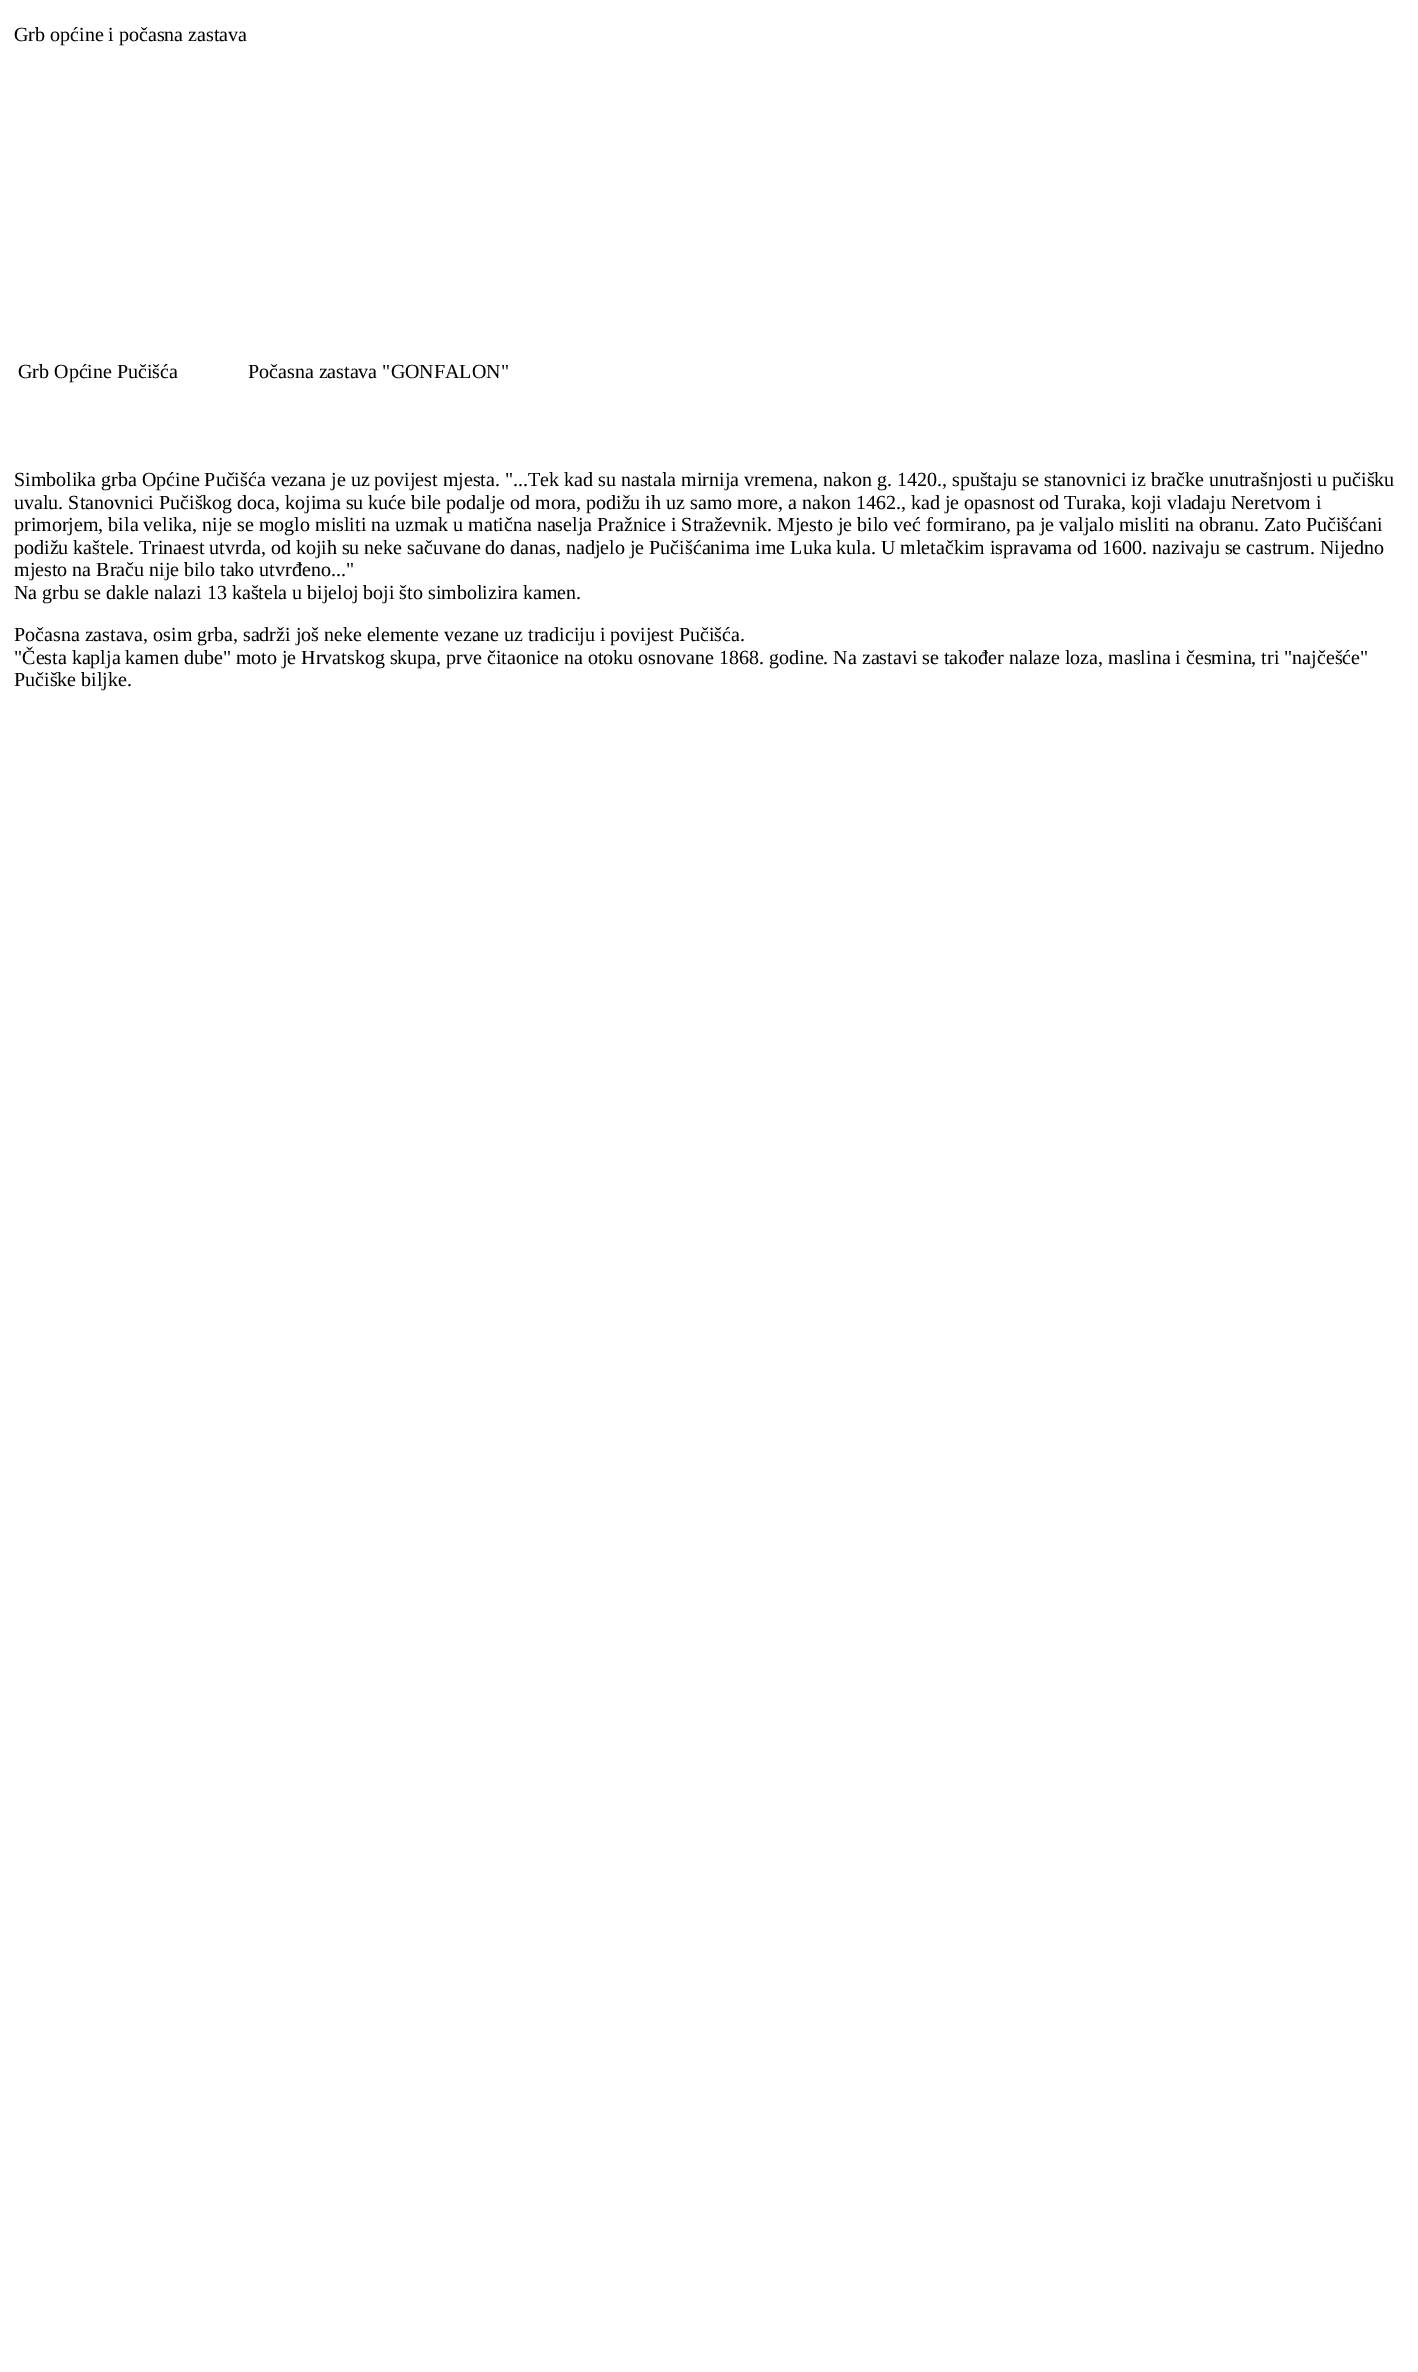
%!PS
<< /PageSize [1418 2372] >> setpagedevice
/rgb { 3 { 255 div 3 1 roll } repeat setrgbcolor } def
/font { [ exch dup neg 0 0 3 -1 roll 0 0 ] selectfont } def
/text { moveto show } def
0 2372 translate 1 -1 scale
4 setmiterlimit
255 255 255 rgb
0 0 1418 2372 rectfill
/LiberationSerif-Regular 20 font
0 0 0 rgb
(Grb općine i počasna zastava) 14 41 text
(Grb Općine Pučišća) 18 378 text
(Počasna zastava "GONFALON") 248 378 text
(Simbolika grba Općine Pučišća vezana je uz povijest mjesta. "...Tek kad su nastala mirnija vremena, nakon g. 1420., spuštaju se stanovnici iz bračke unutrašnjosti u pučišku) 14 486 text
(uvalu. Stanovnici Pučiškog doca, kojima su kuće bile podalje od mora, podižu ih uz samo more, a nakon 1462., kad je opasnost od Turaka, koji vladaju Neretvom i) 14 509 text
(primorjem, bila velika, nije se moglo misliti na uzmak u matična naselja Pražnice i Straževnik. Mjesto je bilo već formirano, pa je valjalo misliti na obranu. Zato Pučišćani) 14 531 text
(podižu kaštele. Trinaest utvrda, od kojih su neke sačuvane do danas, nadjelo je Pučišćanima ime Luka kula. U mletačkim ispravama od 1600. nazivaju se castrum. Nijedno) 14 554 text
(mjesto na Braču nije bilo tako utvrđeno...") 14 576 text
(Na grbu se dakle nalazi 13 kaštela u bijeloj boji što simbolizira kamen.) 14 599 text
(Počasna zastava, osim grba, sadrži još neke elemente vezane uz tradiciju i povijest Pučišća.) 14 641 text
("Česta kaplja kamen dube" moto je Hrvatskog skupa, prve čitaonice na otoku osnovane 1868. godine. Na zastavi se također nalaze loza, maslina i česmina, tri "najčešće") 14 664 text
(Pučiške biljke.) 14 686 text
showpage
